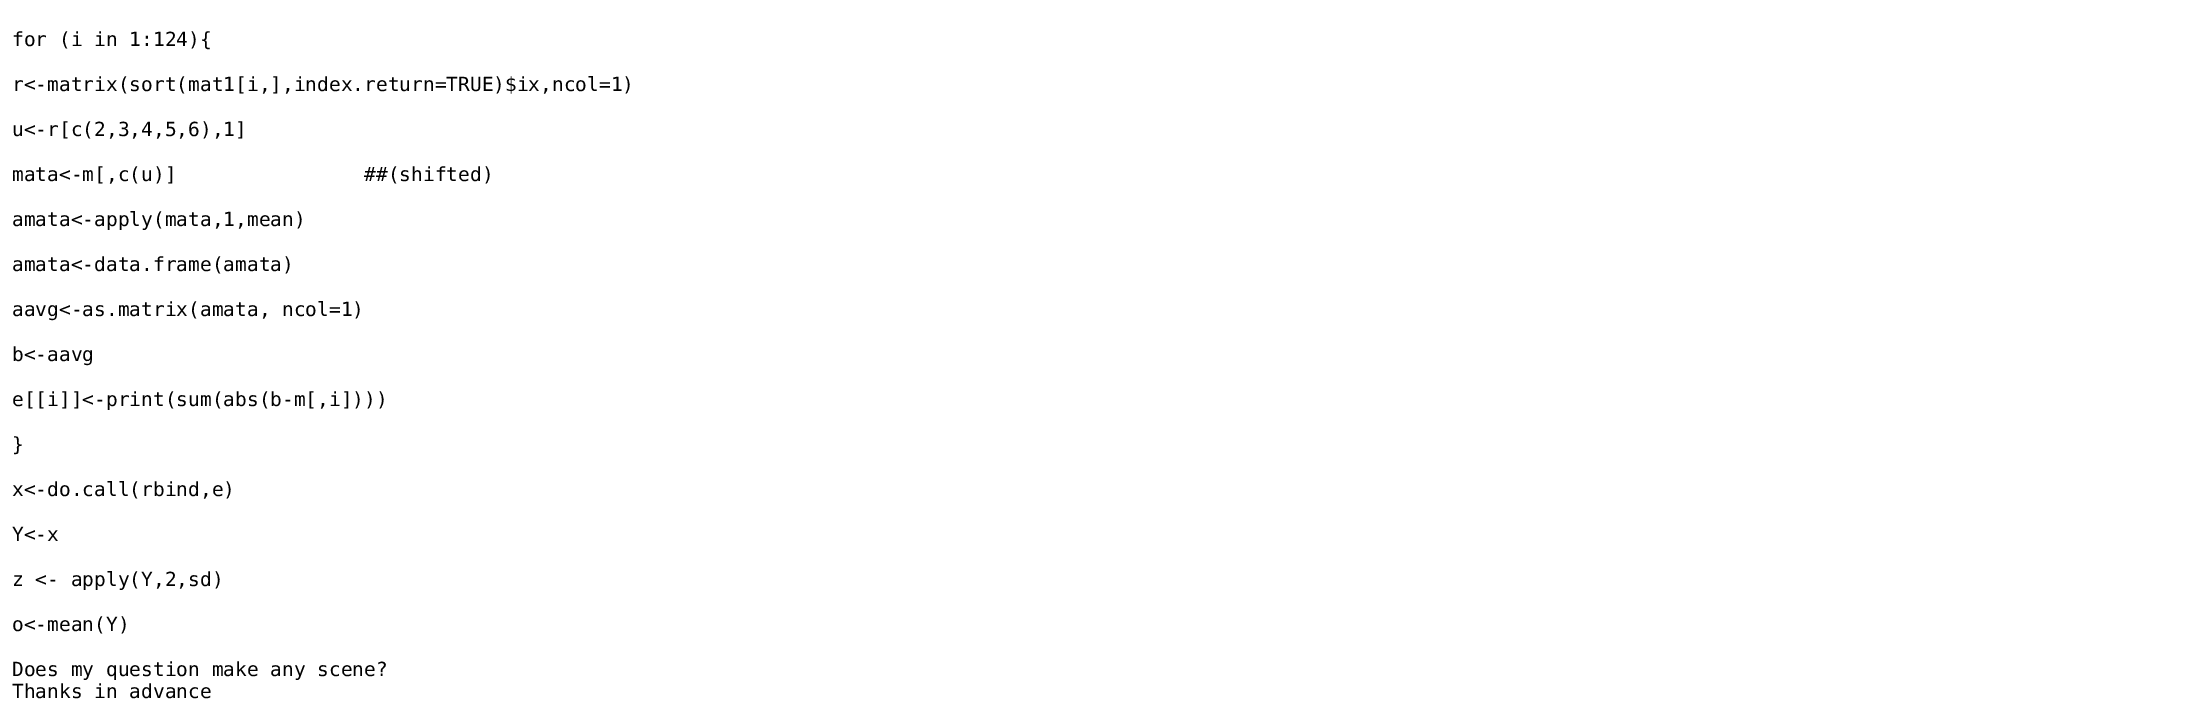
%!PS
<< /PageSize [2206 712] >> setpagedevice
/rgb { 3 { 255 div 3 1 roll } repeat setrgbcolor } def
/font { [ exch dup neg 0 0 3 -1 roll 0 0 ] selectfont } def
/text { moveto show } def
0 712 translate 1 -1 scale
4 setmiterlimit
255 255 255 rgb
0 0 2206 712 rectfill
/DejaVuSansMono-Regular 19.5 font
0 0 0 rgb
(for \(i in 1:124\){) 12 46 text
(r<-matrix\(sort\(mat1[i,],index.return=TRUE\)$ix,ncol=1\)) 12 91 text
(u<-r[c\(2,3,4,5,6\),1]) 12 136 text
(mata<-m[,c\(u\)]                ##\(shifted\)) 12 181 text
(amata<-apply\(mata,1,mean\)) 12 226 text
(amata<-data.frame\(amata\)) 12 271 text
(aavg<-as.matrix\(amata, ncol=1\)) 12 316 text
(b<-aavg) 12 361 text
(e[[i]]<-print\(sum\(abs\(b-m[,i]\)\)\)) 12 406 text
(}) 12 451 text
(x<-do.call\(rbind,e\)) 12 496 text
(Y<-x) 12 541 text
(z <- apply\(Y,2,sd\)) 12 586 text
(o<-mean\(Y\)) 12 631 text
(Does my question make any scene?) 12 676 text
(Thanks in advance) 12 698 text
showpage
